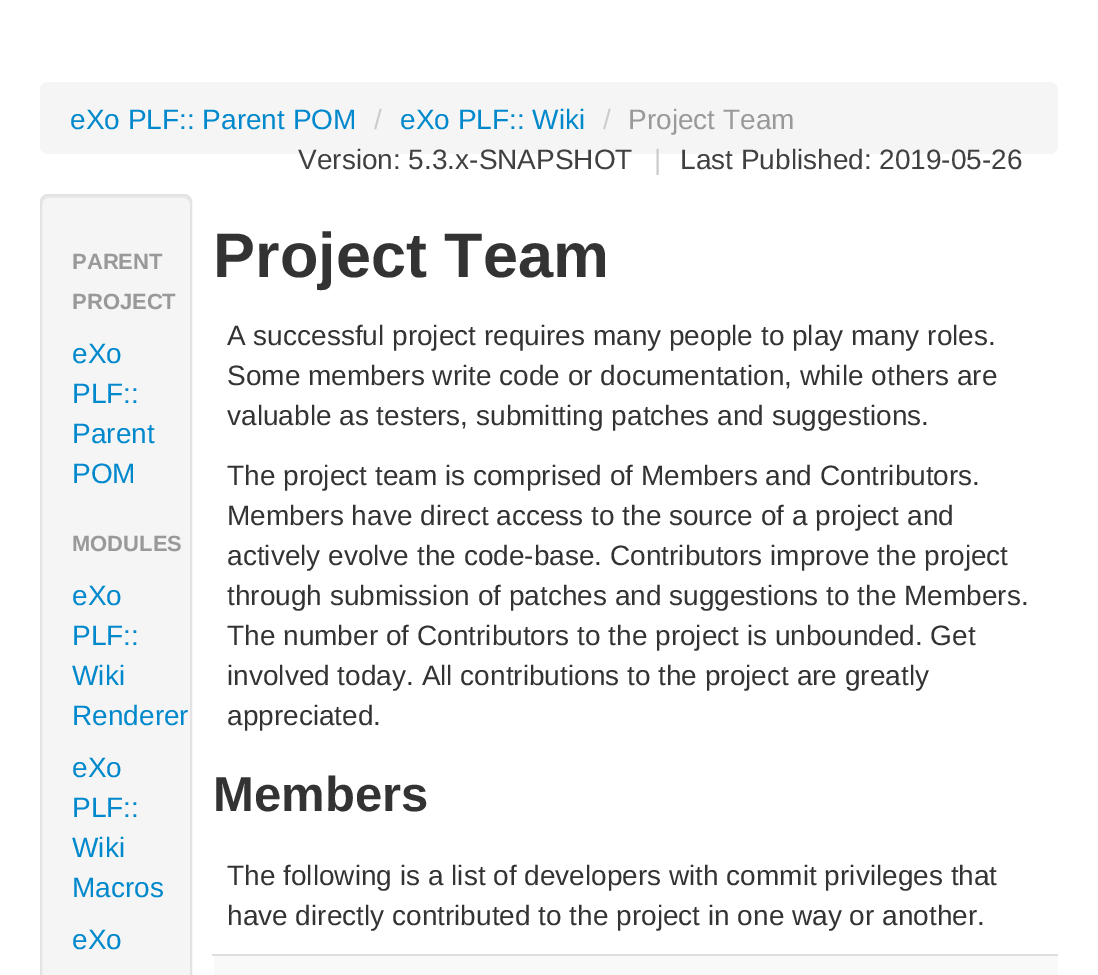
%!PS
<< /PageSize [1098 975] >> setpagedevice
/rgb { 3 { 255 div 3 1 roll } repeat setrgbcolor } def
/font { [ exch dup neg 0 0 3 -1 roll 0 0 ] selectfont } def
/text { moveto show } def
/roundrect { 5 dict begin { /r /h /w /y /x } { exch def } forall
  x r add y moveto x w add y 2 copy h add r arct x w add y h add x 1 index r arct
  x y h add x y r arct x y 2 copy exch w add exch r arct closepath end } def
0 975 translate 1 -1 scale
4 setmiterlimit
255 255 255 rgb
0 0 1098 975 rectfill
245 245 245 rgb
40 82 1018 72 8 roundrect fill
40 194 152 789 8 roundrect fill
233 233 233 rgb
48 198 moveto 136 0 rlineto 3 0 6 3 6 6 rcurveto 0 -2 rlineto 0 -3 -3 -6 -6 -6 rcurveto -136 0 rlineto -3 0 -6 3 -6 6 rcurveto 0 2 rlineto 0 -3 3 -6 6 -6 rcurveto closepath fill
227 227 227 rgb
2 setlinewidth
41 195 150 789 7 roundrect stroke
221 221 221 rgb
212 954 846 2 rectfill
249 249 249 rgb
214 956 844 19 rectfill
/LiberationSans-Regular 28 font
0 136 204 rgb
(eXo PLF:: Parent POM) 70 129 text
204 204 204 rgb
(/) 374 129 text
0 136 204 rgb
(eXo PLF:: Wiki) 400 129 text
204 204 204 rgb
(/) 603 129 text
153 153 153 rgb
(Project Team) 628 129 text
64 64 64 rgb
(Version: 5.3.x-SNAPSHOT) 298 169 text
204 204 204 rgb
(|) 654 169 text
64 64 64 rgb
(Last Published: 2019-05-26) 680 169 text
/LiberationSans-Bold 22 font
153 153 153 rgb
(PARENT) 72 269 text
(PROJECT) 72 309 text
/LiberationSans-Regular 28 font
0 136 204 rgb
(eXo) 72 363 text
(PLF::) 72 403 text
(Parent) 72 443 text
(POM) 72 483 text
/LiberationSans-Bold 22 font
153 153 153 rgb
(MODULES) 72 551 text
/LiberationSans-Regular 28 font
0 136 204 rgb
(eXo) 72 605 text
(PLF::) 72 645 text
(Wiki) 72 685 text
(Renderer) 72 725 text
(eXo) 72 777 text
(PLF::) 72 817 text
(Wiki) 72 857 text
(Macros) 72 897 text
(eXo) 72 949 text
/LiberationSans-Bold 63 font
51 51 51 rgb
(Project Team) 213 277 text
/LiberationSans-Regular 28 font
(A successful project requires many people to play many roles.) 227 345 text
(Some members write code or documentation, while others are) 227 385 text
(valuable as testers, submitting patches and suggestions.) 227 425 text
(The project team is comprised of Members and Contributors.) 227 485 text
(Members have direct access to the source of a project and) 227 525 text
(actively evolve the code-base. Contributors improve the project) 227 565 text
(through submission of patches and suggestions to the Members.) 227 605 text
(The number of Contributors to the project is unbounded. Get) 227 645 text
(involved today. All contributions to the project are greatly) 227 685 text
(appreciated.) 227 725 text
/LiberationSans-Bold 49 font
(Members) 213 811 text
/LiberationSans-Regular 28 font
(The following is a list of developers with commit privileges that) 227 885 text
(have directly contributed to the project in one way or another.) 227 925 text
showpage
